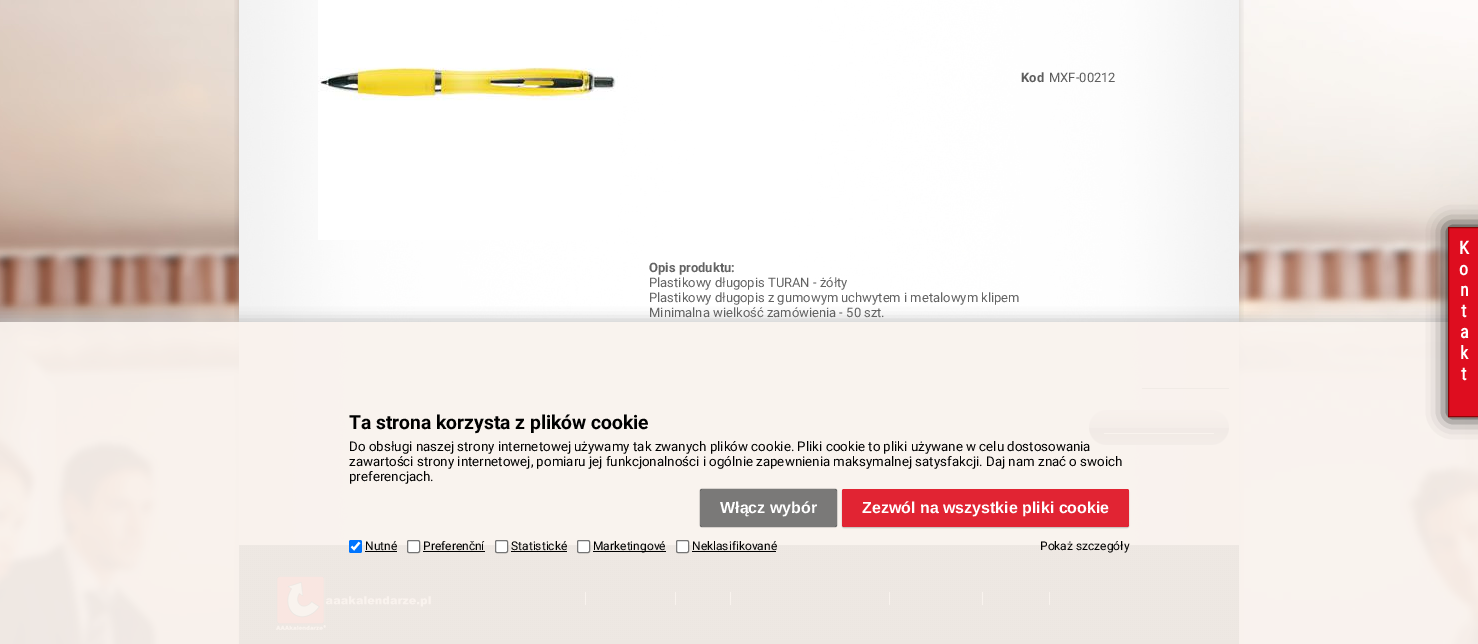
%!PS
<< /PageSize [1478 644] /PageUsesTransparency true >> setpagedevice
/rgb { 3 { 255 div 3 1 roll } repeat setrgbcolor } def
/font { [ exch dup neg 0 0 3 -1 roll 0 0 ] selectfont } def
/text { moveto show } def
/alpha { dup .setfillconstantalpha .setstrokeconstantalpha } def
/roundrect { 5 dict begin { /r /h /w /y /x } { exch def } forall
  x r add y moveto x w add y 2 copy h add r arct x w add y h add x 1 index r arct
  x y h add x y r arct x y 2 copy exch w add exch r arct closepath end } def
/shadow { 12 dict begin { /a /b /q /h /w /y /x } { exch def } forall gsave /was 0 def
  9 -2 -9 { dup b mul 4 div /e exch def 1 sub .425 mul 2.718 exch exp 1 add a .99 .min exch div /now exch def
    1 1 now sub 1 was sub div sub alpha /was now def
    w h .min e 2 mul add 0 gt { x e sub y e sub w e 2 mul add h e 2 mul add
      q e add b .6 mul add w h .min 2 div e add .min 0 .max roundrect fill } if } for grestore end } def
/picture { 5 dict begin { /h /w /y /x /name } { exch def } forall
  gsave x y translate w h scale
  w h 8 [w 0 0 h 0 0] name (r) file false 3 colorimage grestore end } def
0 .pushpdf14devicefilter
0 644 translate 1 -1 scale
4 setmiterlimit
255 255 255 rgb
0 0 1478 644 rectfill
(img_01.rgb) 0 0 1478 644 picture
(img_02.rgb) 239 0 1000 545 picture
(img_03.rgb) 234 0 5 545 picture
(img_04.rgb) 318 0 300 240 picture
99 99 99 rgb
1142 388 87 1 rectfill
(img_05.rgb) 1089 410 20 35 picture
(img_06.rgb) 1109 410 100 35 picture
(img_07.rgb) 1209 410 20 35 picture
255 255 255 rgb
1104 433 110 1 rectfill
(img_08.rgb) 1239 0 5 545 picture
(img_09.rgb) 239 545 1000 95 picture
(img_10.rgb) 234 545 5 99 picture
(img_11.rgb) 276 576 155 54 picture
585 592 1 13 rectfill
675 592 1 13 rectfill
730 592 1 13 rectfill
889 592 1 13 rectfill
982 592 1 13 rectfill
1049 592 1 13 rectfill
(img_12.rgb) 1239 545 5 99 picture
17 17 17 rgb
239 640 1000 4 rectfill
gsave
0 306 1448 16 rectclip
192 192 192 rgb
-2 320 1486 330 0 7 1 shadow
grestore
0.95 alpha
249 242 237 rgb
0 322 1478 322 rectfill
1 alpha
17 17 17 rgb
1448 227 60 190 0 10 1 shadow
222 13 31 rgb
1448.5 227.5 moveto 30 0 rlineto 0 189 rlineto -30 0 rlineto closepath gsave fill grestore
141 3 6 rgb
stroke
gsave
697 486 moveto 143 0 rlineto 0 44 rlineto -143 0 rlineto closepath 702 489 moveto 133 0 rlineto 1 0 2 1 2 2 rcurveto 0 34 rlineto 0 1 -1 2 -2 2 rcurveto -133 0 rlineto -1 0 -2 -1 -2 -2 rcurveto 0 -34 rlineto 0 -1 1 -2 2 -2 rcurveto closepath eoclip newpath
90 90 90 rgb
700 489 137 38 2 0.5 0.8 shadow
grestore
0.8 alpha
90 90 90 rgb
700 489 137 38 2 roundrect fill
gsave
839 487 moveto 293 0 rlineto 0 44 rlineto -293 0 rlineto closepath 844 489 moveto 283 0 rlineto 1 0 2 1 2 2 rcurveto 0 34 rlineto 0 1 -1 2 -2 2 rcurveto -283 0 rlineto -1 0 -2 -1 -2 -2 rcurveto 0 -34 rlineto 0 -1 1 -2 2 -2 rcurveto closepath eoclip newpath
1 alpha
0 0 0 rgb
842 490 287 38 2 0.5 0.2 shadow
grestore
0.9 alpha
222 13 31 rgb
842 489 287 38 2 roundrect fill
1 alpha
0 117 255 rgb
349 540 13 13 2 roundrect fill
255 255 255 rgb
2.1 setlinewidth
351.5 546.5 moveto 2.5 2.5 rlineto 5.5 -6.5 rlineto stroke
0 0 0 rgb
365 551 32 1 rectfill
255 255 255 rgb
407.5 540.5 12 12 1.5 roundrect gsave fill grestore
118 118 118 rgb
1 setlinewidth
stroke
0 0 0 rgb
423 551 62 1 rectfill
255 255 255 rgb
495.5 540.5 12 12 1.5 roundrect gsave fill grestore
118 118 118 rgb
stroke
0 0 0 rgb
511 551 56 1 rectfill
255 255 255 rgb
577.5 540.5 12 12 1.5 roundrect gsave fill grestore
118 118 118 rgb
stroke
0 0 0 rgb
593 551 73 1 rectfill
255 255 255 rgb
676.5 540.5 12 12 1.5 roundrect gsave fill grestore
118 118 118 rgb
stroke
0 0 0 rgb
692 551 84 1 rectfill
/Roboto-Bold 13 font
93 93 93 rgb
(Kod) 1021 82 text
/Roboto-Regular 13 font
(MXF-00212) 1049 82 text
/Roboto-Bold 13 font
99 99 99 rgb
(Opis produktu:) 649 272 text
/Roboto-Regular 13 font
(Plastikowy długopis TURAN - żółty) 649 287 text
(Plastikowy długopis z gumowym uchwytem i metalowym klipem) 649 302 text
(Minimalna wielkość zamówienia - 50 szt.) 649 317 text
/RobotoCondensed-Bold 18 font
255 255 255 rgb
(K) 1459 254 text
(o) 1459 275 text
(n) 1460 296 text
(t) 1461 317 text
(a) 1460 338 text
(k) 1460 359 text
(t) 1461 380 text
/Roboto-Bold 19.25 font
0 0 0 rgb
(Ta strona korzysta z plików cookie) 349 429 text
/Roboto-Regular 13.33 font
(Do obsługi naszej strony internetowej używamy tak zwanych plików cookie. Pliki cookie to pliki używane w celu dostosowania) 349 451 text
(zawartości strony internetowej, pomiaru jej funkcjonalności i ogólnie zapewnienia maksymalnej satysfakcji. Daj nam znać o swoich) 349 466 text
(preferencjach.) 349 481 text
/LiberationSans-Bold 16 font
255 255 255 rgb
(Włącz wybór) 720 513 text
(Zezwól na wszystkie pliki cookie) 862 513 text
/Roboto-Regular 12 font
0 0 0 rgb
(Nutné) 365 550 text
(Preferenční) 423 550 text
(Statistické) 511 550 text
(Marketingové) 593 550 text
(Neklasifikované) 692 550 text
(Pokaż szczegóły) 1040 550 text
.poppdf14devicefilter showpage
